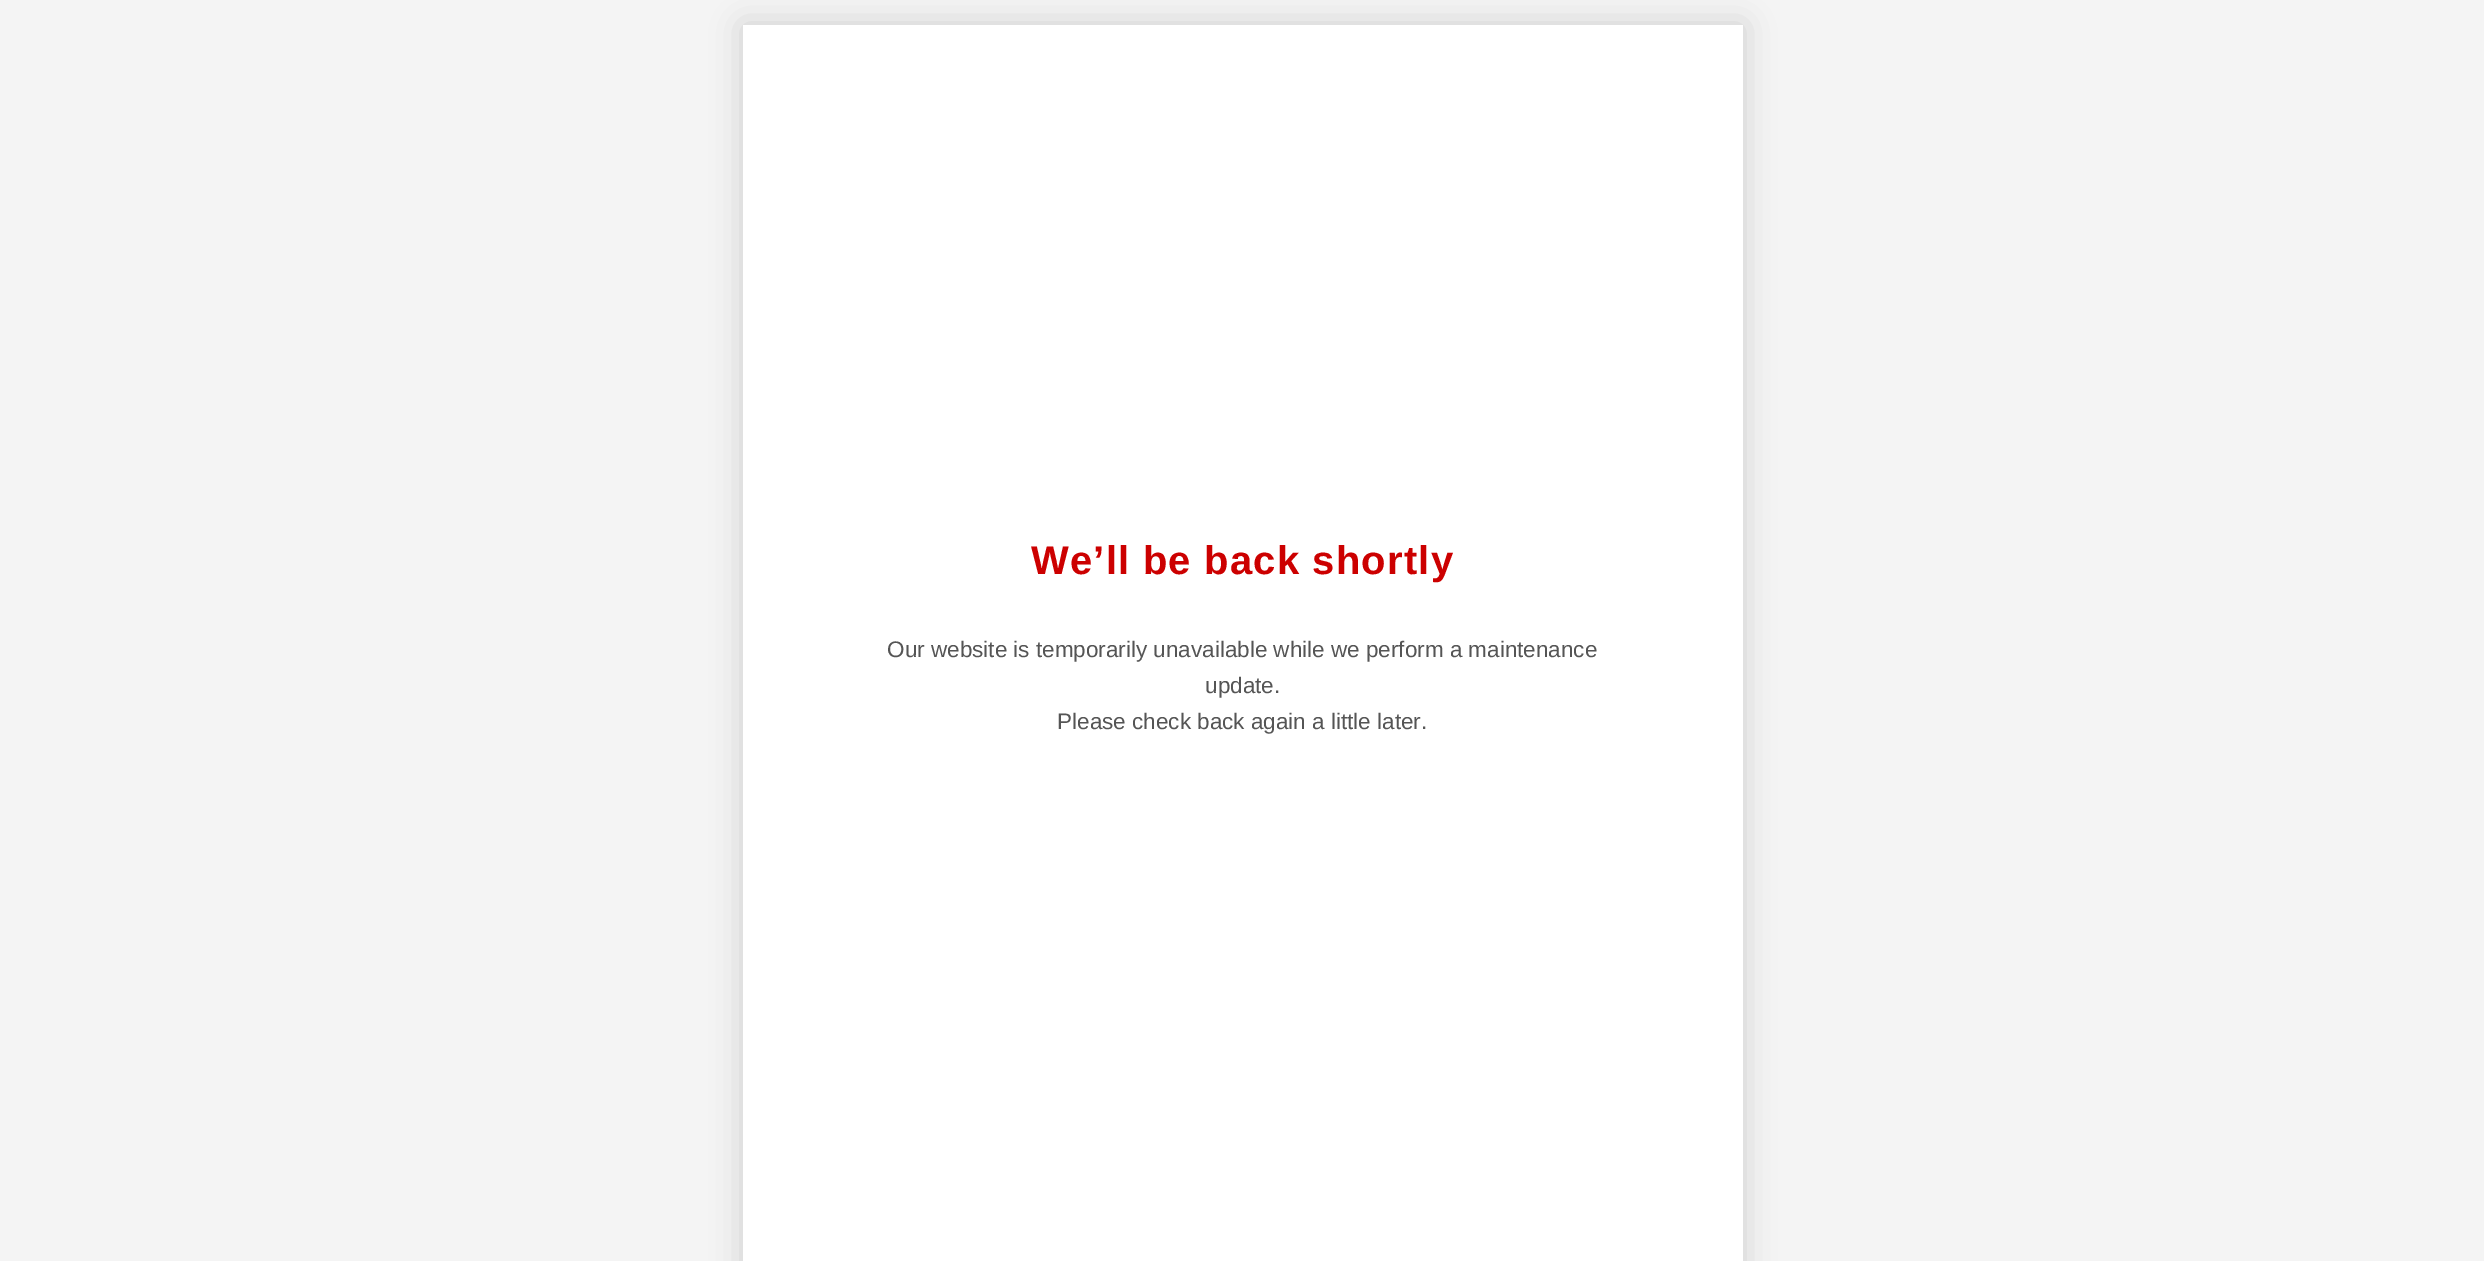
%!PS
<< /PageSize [2484 1261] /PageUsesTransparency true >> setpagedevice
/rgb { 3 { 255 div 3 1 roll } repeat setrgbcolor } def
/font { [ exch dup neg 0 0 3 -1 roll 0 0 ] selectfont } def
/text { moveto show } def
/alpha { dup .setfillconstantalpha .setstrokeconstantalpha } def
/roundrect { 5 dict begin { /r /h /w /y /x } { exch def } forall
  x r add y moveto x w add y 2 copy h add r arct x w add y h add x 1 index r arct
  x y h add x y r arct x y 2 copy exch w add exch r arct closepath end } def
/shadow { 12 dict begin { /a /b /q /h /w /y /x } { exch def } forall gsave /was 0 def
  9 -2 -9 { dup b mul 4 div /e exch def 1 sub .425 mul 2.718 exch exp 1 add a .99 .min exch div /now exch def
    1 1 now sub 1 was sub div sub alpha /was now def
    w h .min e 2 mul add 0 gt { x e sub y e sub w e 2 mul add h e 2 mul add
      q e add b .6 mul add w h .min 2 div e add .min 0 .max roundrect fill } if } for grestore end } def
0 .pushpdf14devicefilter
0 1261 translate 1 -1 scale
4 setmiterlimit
244 244 244 rgb
0 0 2484 1261 rectfill
0 0 0 rgb
743 25 1000 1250 0 15.5 0.15 shadow
255 255 255 rgb
743 25 1000 1236 rectfill
/LiberationSans-Bold 40 font
204 0 0 rgb
1031 574 moveto 1.2 0 (We’ll be back shortly) ashow
/LiberationSans-Regular 22.5 font
85 85 85 rgb
(Our website is temporarily unavailable while we perform a maintenance) 887 657 text
(update.) 1205 693 text
(Please check back again a little later.) 1057 729 text
.poppdf14devicefilter showpage
